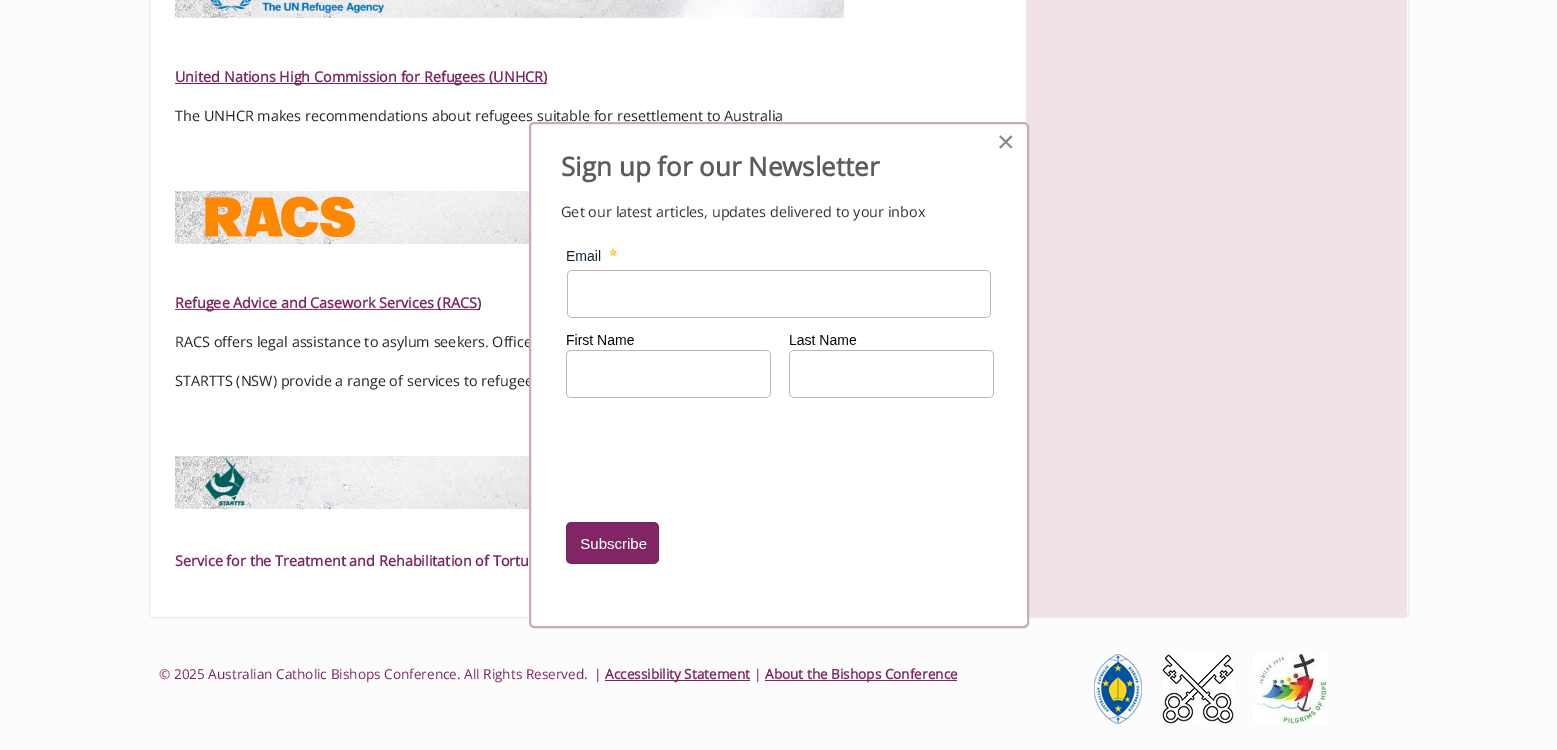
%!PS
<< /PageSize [1557 750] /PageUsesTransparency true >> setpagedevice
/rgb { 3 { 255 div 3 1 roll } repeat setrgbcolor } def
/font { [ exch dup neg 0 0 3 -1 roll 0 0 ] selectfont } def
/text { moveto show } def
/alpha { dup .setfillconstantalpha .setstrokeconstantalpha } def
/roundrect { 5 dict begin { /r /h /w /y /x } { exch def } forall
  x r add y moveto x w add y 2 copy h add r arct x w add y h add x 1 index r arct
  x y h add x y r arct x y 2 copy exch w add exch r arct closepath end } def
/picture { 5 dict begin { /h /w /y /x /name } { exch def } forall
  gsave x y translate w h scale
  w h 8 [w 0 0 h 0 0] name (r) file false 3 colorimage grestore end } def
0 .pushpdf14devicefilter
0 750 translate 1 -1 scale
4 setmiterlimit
252 252 252 rgb
0 0 1557 750 rectfill
255 255 255 rgb
149.5 -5.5 1259 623 4.5 roundrect gsave fill grestore
235 235 235 rgb
stroke
(img_01.rgb) 174 0 670 18 picture
126 36 97 rgb
175 83 372 1 rectfill
(img_02.rgb) 175 191 354 53 picture
153 51 102 rgb
175 309 305 1 rectfill
(img_03.rgb) 175 456 354 53 picture
gsave
150 -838 1258 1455 4 roundrect clip newpath
241 226 231 rgb
1026 0 381 617 rectfill
grestore
126 36 97 rgb
605 680 145 1 rectfill
129 37 101 rgb
765 680 192 1 rectfill
(img_04.rgb) 1094 654 48 70 picture
(img_05.rgb) 1162 654 72 70 picture
(img_06.rgb) 1254 653 74 72 picture
/OpenSans-Bold 14.4 font
126 36 97 rgb
(United Nations High Commission for Refugees \(UNHCR\)) 175 82 text
/OpenSans-Regular 14.4 font
37 37 37 rgb
(The UNHCR makes recommendations about refugees suitable for resettlement to Australia) 175 121 text
/OpenSans-Bold 14.4 font
126 36 97 rgb
(Refugee Advice and Casework Services \(RACS\)) 175 308 text
/OpenSans-Regular 14.4 font
37 37 37 rgb
(RACS offers legal assistance to asylum seekers. Office) 175 347 text
(STARTTS \(NSW\) provide a range of services to refugee) 175 386 text
/OpenSans-Bold 14.4 font
126 36 97 rgb
(Service for the Treatment and Rehabilitation of Tortu) 175 566 text
/OpenSans-Regular 13.6 font
(© 2025 Australian Catholic Bishops Conference. All Rights Reserved.) 159 679 text
(|) 594 679 text
/OpenSans-Bold 13.6 font
(Accessibility Statement) 605 679 text
/OpenSans-Regular 13.6 font
(|) 754 679 text
/OpenSans-Bold 13.6 font
(About the Bishops Conference) 765 679 text
255 255 255 rgb
529 122 500 506 5 roundrect fill
0.4 alpha
129 37 101 rgb
2 setlinewidth
530 123 498 504 4 roundrect stroke
/LiberationSans-Regular 30 font
1 alpha
136 136 136 rgb
(×) 997 152 text
/OpenSans-Bold 26 font
92 92 92 rgb
(Sign up for our Newsletter) 561 176 text
/OpenSans-Regular 14.4 font
51 51 51 rgb
(Get our latest articles, updates delivered to your inbox) 561 217 text
(img_07.rgb) 566 248 428 316 picture
.poppdf14devicefilter showpage
